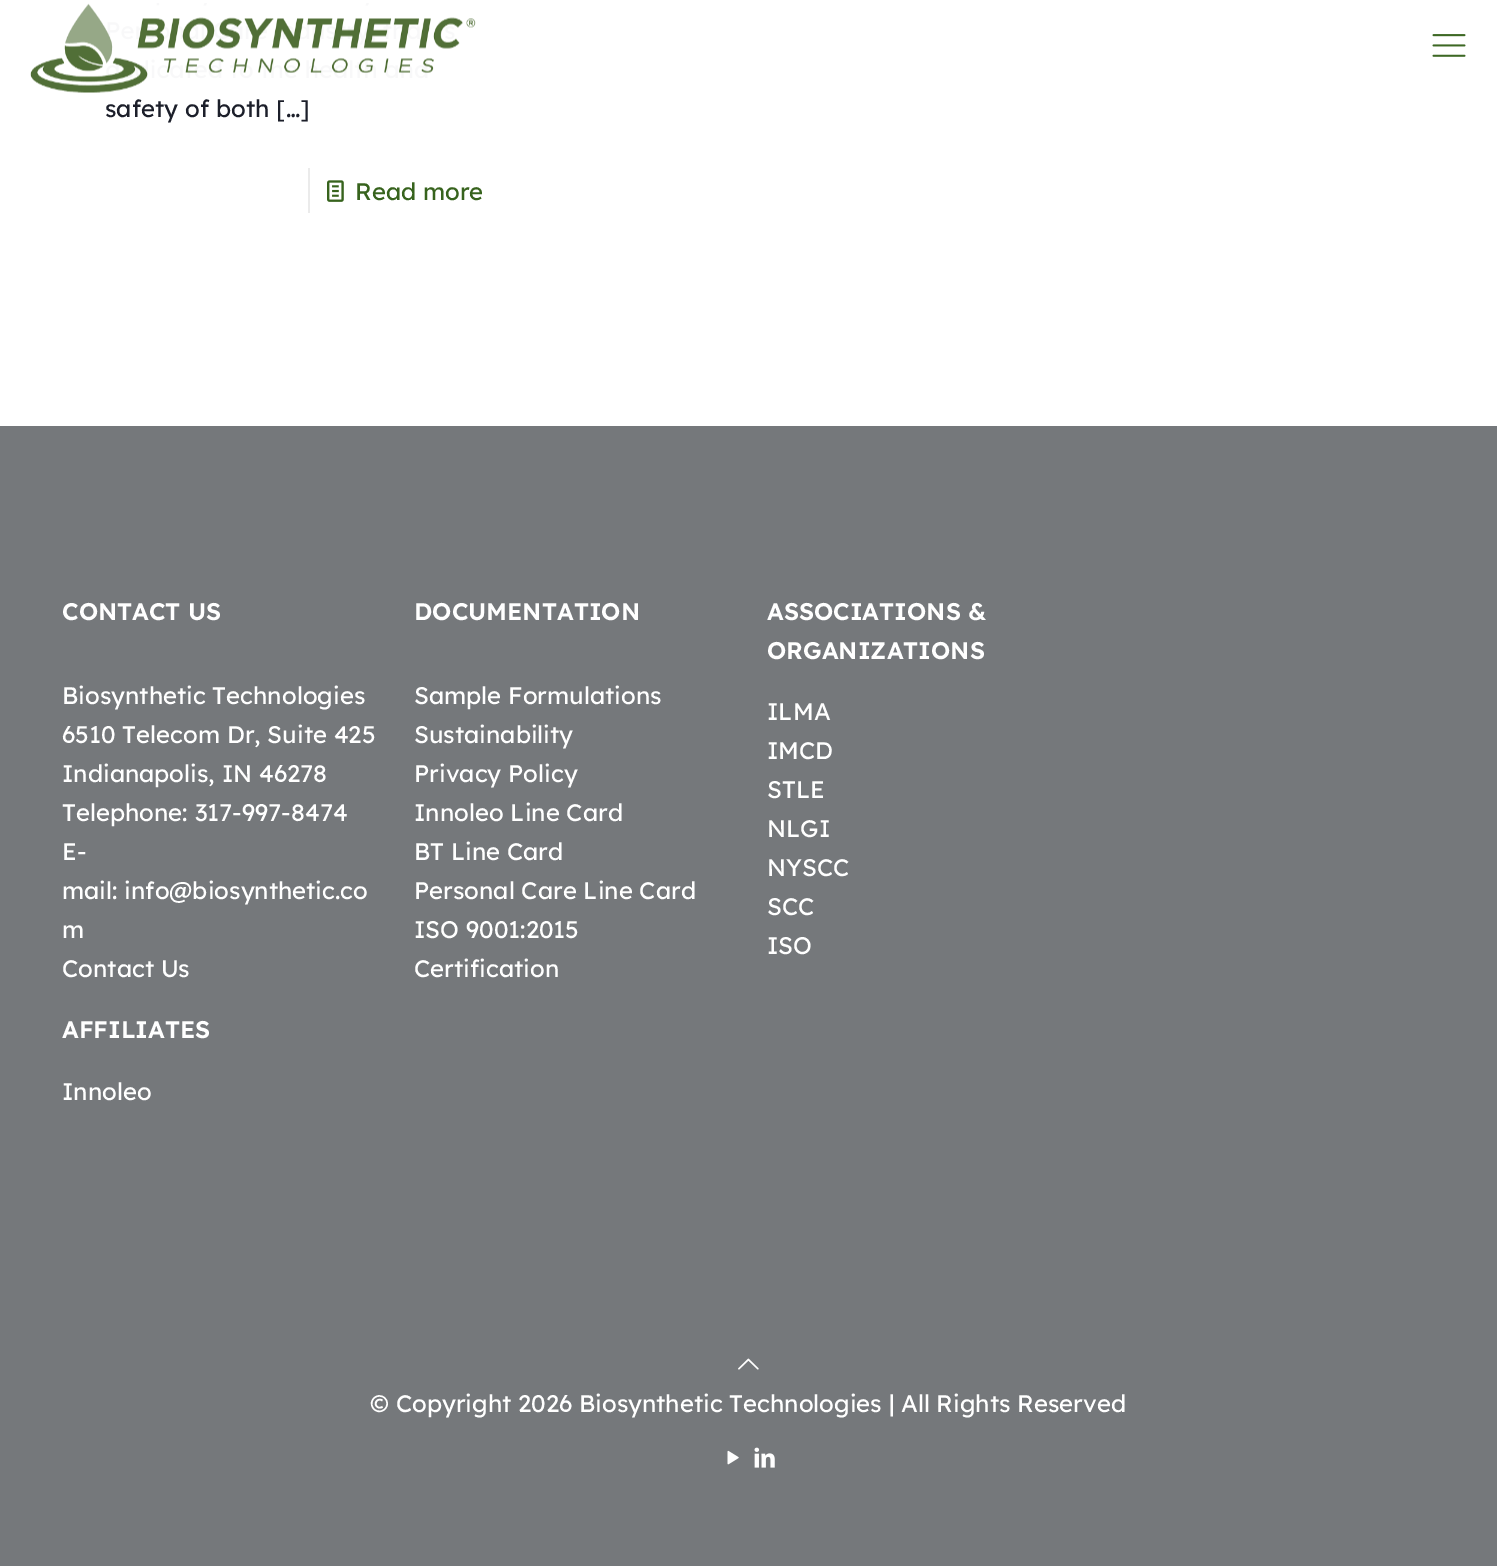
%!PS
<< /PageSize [1497 1566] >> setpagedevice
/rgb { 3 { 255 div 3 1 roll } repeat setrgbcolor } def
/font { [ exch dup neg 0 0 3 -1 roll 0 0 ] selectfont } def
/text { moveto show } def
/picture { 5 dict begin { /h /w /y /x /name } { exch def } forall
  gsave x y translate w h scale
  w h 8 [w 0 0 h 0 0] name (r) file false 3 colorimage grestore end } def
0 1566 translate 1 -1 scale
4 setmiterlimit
255 255 255 rgb
0 0 1497 1566 rectfill
(img_01.rgb) 30 3 446 90 picture
(img_02.rgb) 1432 34 34 23 picture
235 235 235 rgb
308 168 2 45 rectfill
(img_03.rgb) 327 180 17 22 picture
117 120 123 rgb
0 426 1497 1140 rectfill
(img_04.rgb) 738 1358 21 12 picture
(img_05.rgb) 727 1450 12 15 picture
(img_06.rgb) 754 1447 21 21 picture
/Lexend-Regular 24 font
28 31 42 rgb
(safety of both […]) 105 117 text
55 99 29 rgb
(Read more) 355 200 text
/Lexend-SemiBold 24 font
255 255 255 rgb
(CONTACT US) 62 620 text
/Lexend-Regular 24 font
(Biosynthetic Technologies) 62 704 text
(6510 Telecom Dr, Suite 425) 62 743 text
(Indianapolis, IN 46278) 62 782 text
(Telephone: 317-997-8474) 62 821 text
(E-) 62 860 text
(mail: info@biosynthetic.co) 62 899 text
(m) 62 938 text
(Contact Us) 62 977 text
/Lexend-SemiBold 24 font
(AFFILIATES) 62 1038 text
/Lexend-Regular 24 font
(Innoleo) 62 1100 text
/Lexend-SemiBold 24 font
(DOCUMENTATION) 414 620 text
/Lexend-Regular 24 font
(Sample Formulations) 414 704 text
(Sustainability) 414 743 text
(Privacy Policy) 414 782 text
(Innoleo Line Card) 414 821 text
(BT Line Card) 414 860 text
(Personal Care Line Card) 414 899 text
(ISO 9001:2015) 414 938 text
(Certification) 414 977 text
/Lexend-SemiBold 24 font
(ASSOCIATIONS &) 767 620 text
(ORGANIZATIONS) 767 659 text
/Lexend-Regular 24 font
(ILMA) 767 720 text
(IMCD) 767 759 text
(STLE) 767 798 text
(NLGI) 767 837 text
(NYSCC) 767 876 text
(SCC) 767 915 text
(ISO) 767 954 text
(© Copyright 2026 Biosynthetic Technologies | All Rights Reserved) 370 1412 text
showpage
